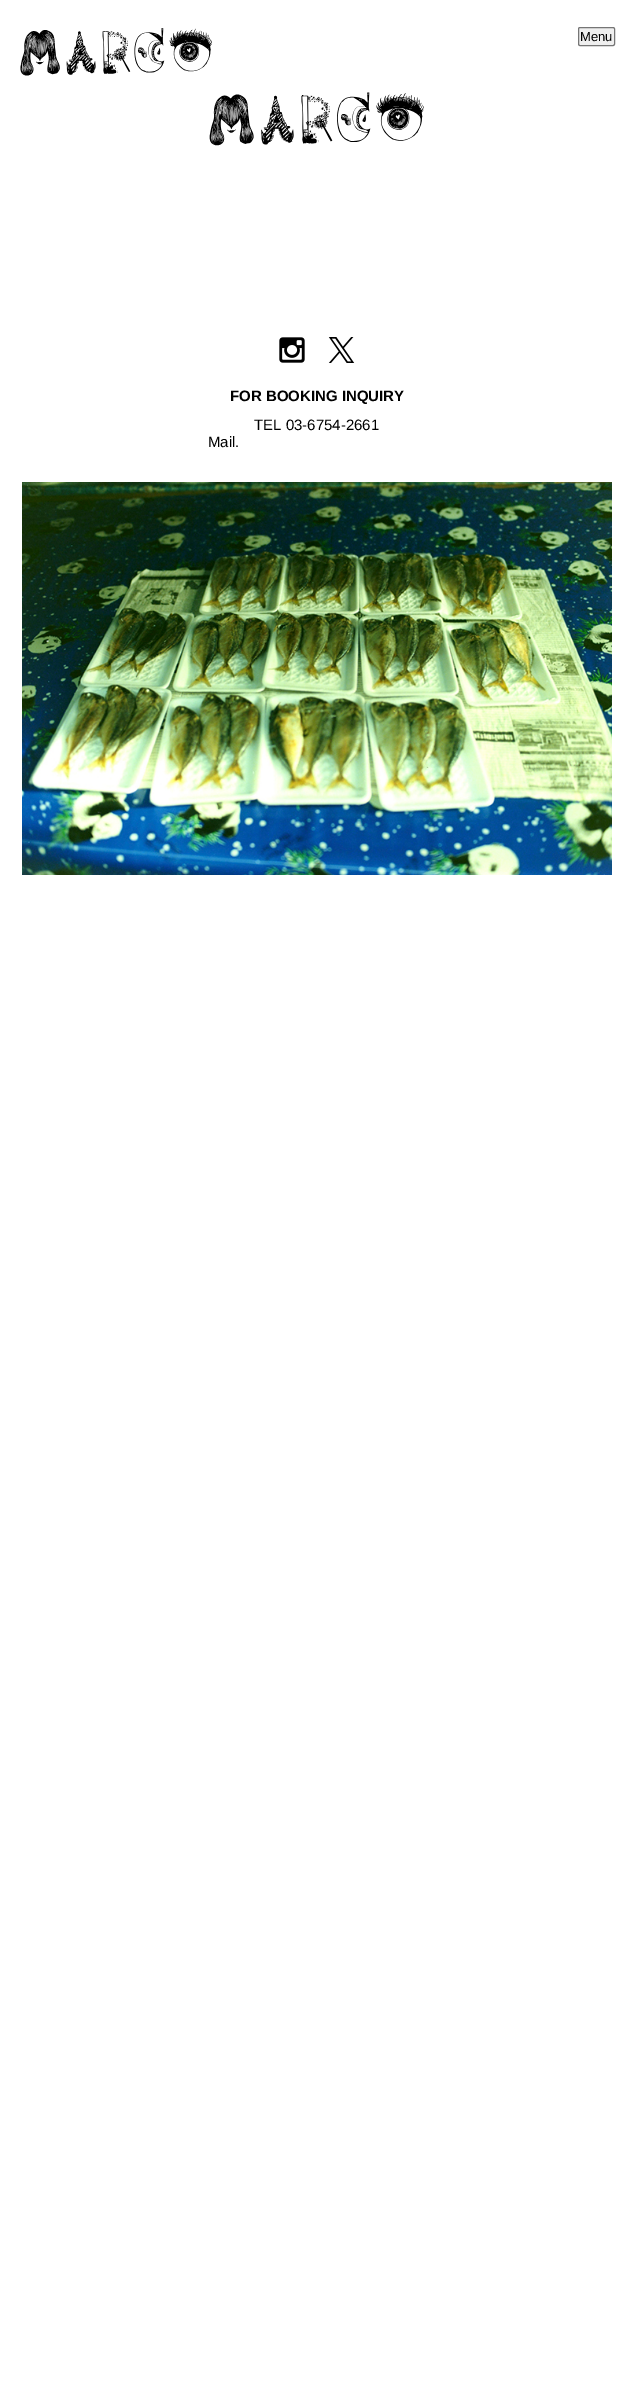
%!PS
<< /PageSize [634 2395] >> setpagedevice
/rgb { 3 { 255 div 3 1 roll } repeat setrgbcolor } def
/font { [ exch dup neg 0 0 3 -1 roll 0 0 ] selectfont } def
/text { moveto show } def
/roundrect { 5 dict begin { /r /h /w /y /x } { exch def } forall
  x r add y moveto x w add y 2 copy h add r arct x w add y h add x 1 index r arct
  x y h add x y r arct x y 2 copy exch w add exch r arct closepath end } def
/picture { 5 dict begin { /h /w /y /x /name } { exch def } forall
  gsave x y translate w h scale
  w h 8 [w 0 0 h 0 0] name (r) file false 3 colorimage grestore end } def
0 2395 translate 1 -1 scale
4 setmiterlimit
255 255 255 rgb
0 0 634 2395 rectfill
(img_01.rgb) 20 28 192 48 picture
239 239 239 rgb
578.5 27.5 36 18 1.5 roundrect gsave fill grestore
118 118 118 rgb
stroke
(img_02.rgb) 209 92 215 54 picture
(img_03.rgb) 279 337 26 26 picture
(img_04.rgb) 328 337 27 26 picture
(img_05.rgb) 22 482 590 393 picture
/LiberationSans-Regular 13 font
0 0 0 rgb
(Menu) 580 41 text
/LiberationSans-Bold 15 font
(FOR BOOKING INQUIRY) 230 401 text
/LiberationSans-Regular 15 font
(TEL 03-6754-2661) 254 430 text
(Mail.) 208 447 text
showpage
